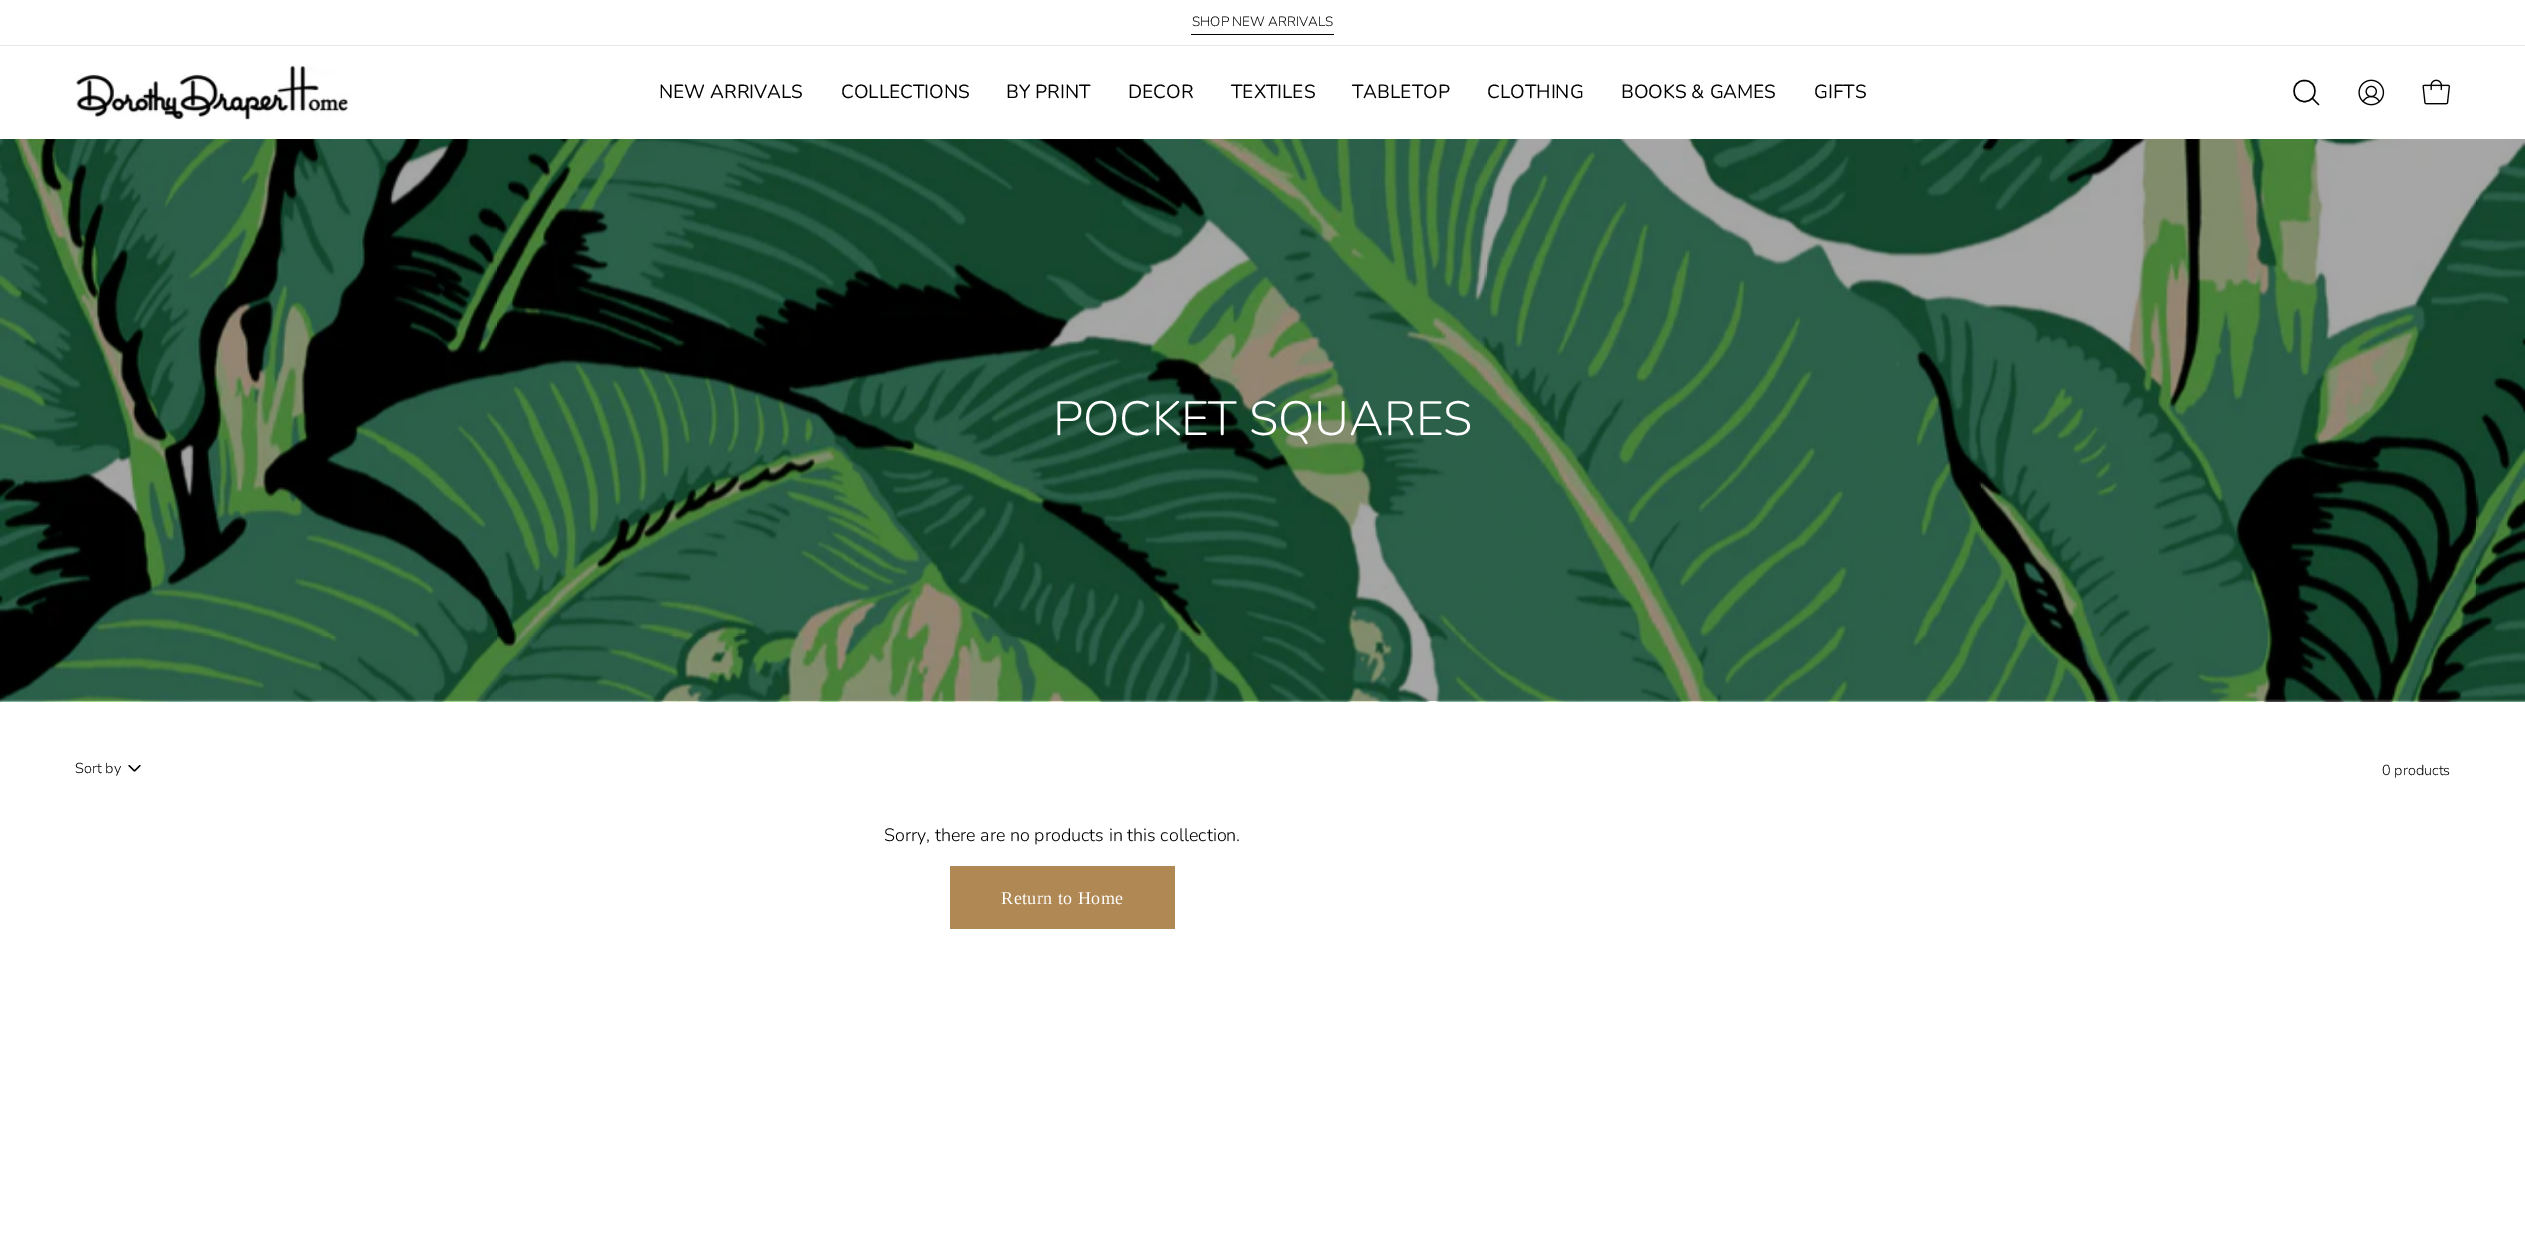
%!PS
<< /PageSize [2525 1234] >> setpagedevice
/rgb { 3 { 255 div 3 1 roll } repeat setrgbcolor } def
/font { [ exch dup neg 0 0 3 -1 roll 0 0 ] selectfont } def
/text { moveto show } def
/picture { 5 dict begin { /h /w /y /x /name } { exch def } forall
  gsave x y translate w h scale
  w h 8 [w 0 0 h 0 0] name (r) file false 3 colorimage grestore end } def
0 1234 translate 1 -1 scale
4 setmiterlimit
255 255 255 rgb
0 0 2525 1234 rectfill
230 230 230 rgb
0 45 2525 1 rectfill
0 0 0 rgb
1191 34 143 1 rectfill
(img_01.rgb) 76 65 274 55 picture
1.4 setlinewidth
1 setlinecap
1 setlinejoin
2304.5 101.5 moveto 14 0 14 -21 0 -21 rcurveto -14 0 -14 21 0 21 rcurveto closepath 2312.5 98.5 moveto 6 6 rlineto stroke
(img_02.rgb) 2358 79 27 27 picture
(img_03.rgb) 2422 79 28 26 picture
(img_04.rgb) 0 139 2525 563 picture
1.1 setlinewidth
140 765.5 moveto -5.5 5.5 rlineto -5.5 -5.5 rlineto stroke
175 136 83 rgb
950 866 225 63 rectfill
/Nunito-Light 13.5 font
0 0 0 rgb
(SHOP NEW ARRIVALS) 1192 26 text
/Nunito-Regular 19 font
(NEW ARRIVALS) 659 98 text
(COLLECTIONS) 841 98 text
(BY PRINT) 1006 98 text
(DECOR) 1128 98 text
(TEXTILES) 1231 98 text
(TABLETOP) 1352 98 text
(CLOTHING) 1487 98 text
(BOOKS & GAMES) 1621 98 text
(GIFTS) 1814 98 text
/Nunito-Light 48 font
255 255 255 rgb
(POCKET SQUARES) 1053 435 text
/Nunito-Light 14.5 font
0 0 0 rgb
(Sort by) 75 773 text
(0 products) 2382 775 text
/Nunito-Light 18 font
(Sorry, there are no products in this collection.) 884 841 text
/LiberationSerif-Regular 18 font
255 255 255 rgb
1001 904 moveto 0.5 0 (Return to Home) ashow
showpage
